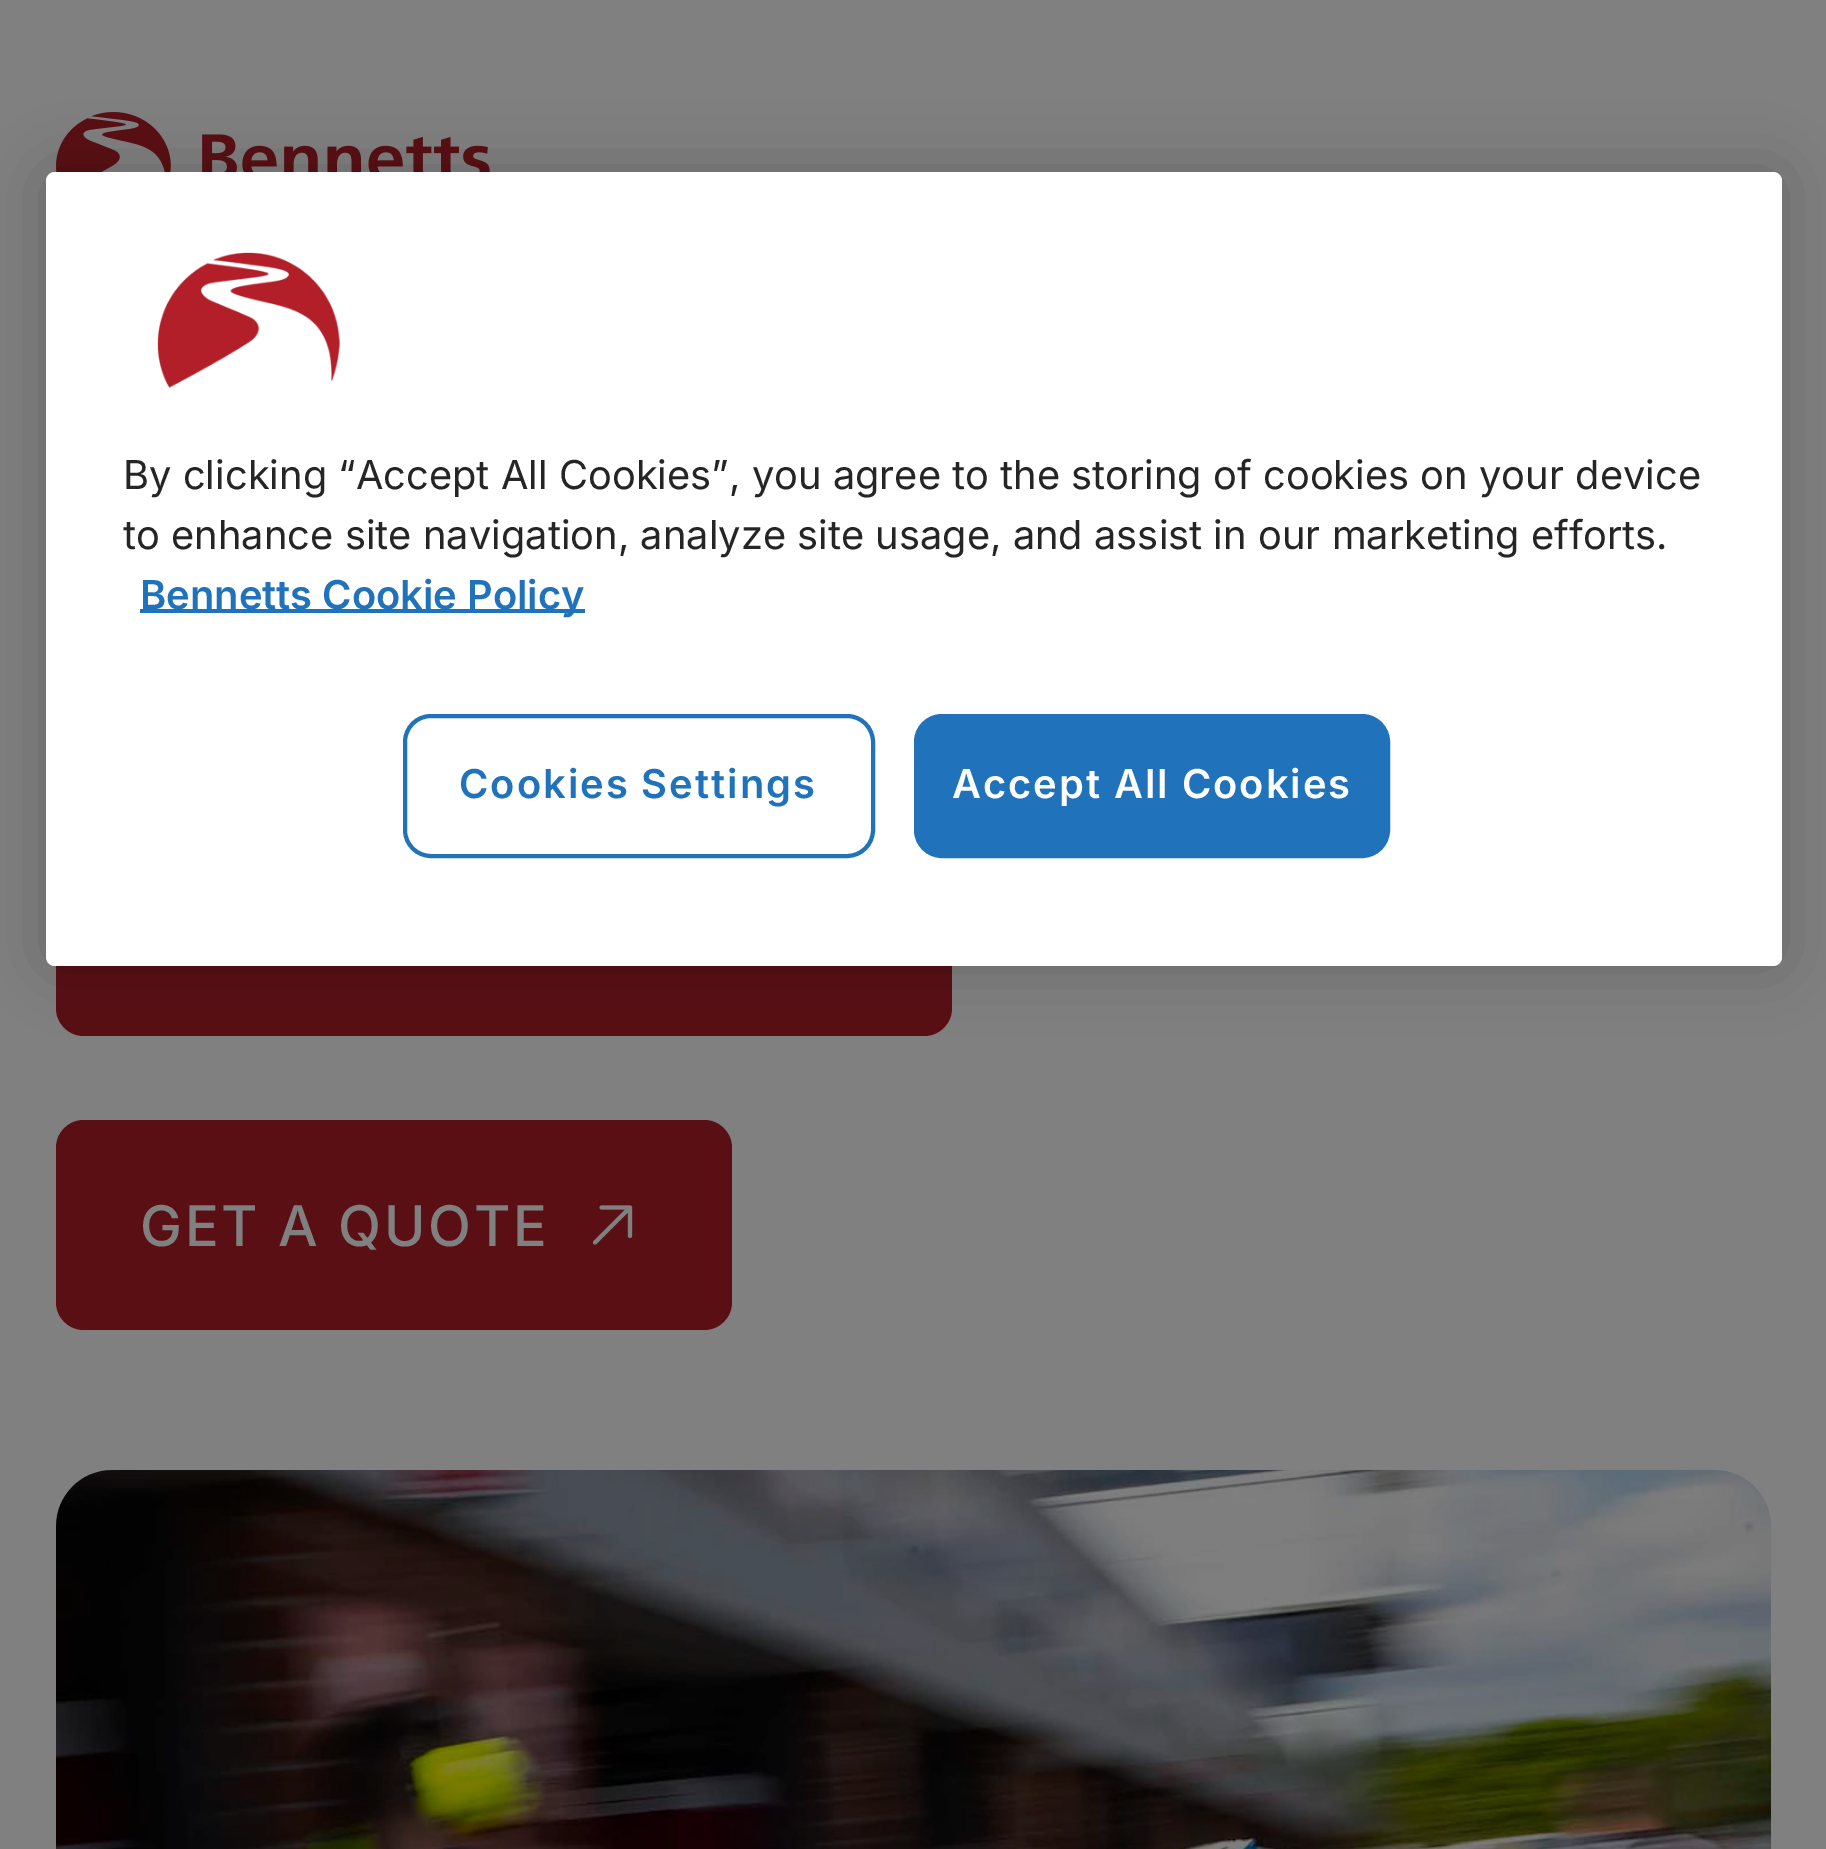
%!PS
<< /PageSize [1826 1849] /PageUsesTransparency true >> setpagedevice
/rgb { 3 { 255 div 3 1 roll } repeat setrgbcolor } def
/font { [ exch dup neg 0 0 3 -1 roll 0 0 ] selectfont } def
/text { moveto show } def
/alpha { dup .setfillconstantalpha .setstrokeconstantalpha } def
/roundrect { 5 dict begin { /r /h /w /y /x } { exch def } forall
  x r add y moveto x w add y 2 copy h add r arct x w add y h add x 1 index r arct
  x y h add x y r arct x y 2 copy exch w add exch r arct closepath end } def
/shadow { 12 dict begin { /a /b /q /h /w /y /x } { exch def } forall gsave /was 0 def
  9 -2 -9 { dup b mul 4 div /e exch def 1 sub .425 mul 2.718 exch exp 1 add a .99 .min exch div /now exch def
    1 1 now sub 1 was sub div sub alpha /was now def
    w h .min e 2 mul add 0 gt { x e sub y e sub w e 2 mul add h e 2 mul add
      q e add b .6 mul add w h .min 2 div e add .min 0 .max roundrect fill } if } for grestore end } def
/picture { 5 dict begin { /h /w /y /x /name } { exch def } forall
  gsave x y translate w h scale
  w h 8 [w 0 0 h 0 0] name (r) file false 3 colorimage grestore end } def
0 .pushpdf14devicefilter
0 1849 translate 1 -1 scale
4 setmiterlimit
128 128 128 rgb
0 0 1826 1849 rectfill
(img_02.rgb) 56 112 434 60 picture
89 15 20 rgb
56 826 896 210 28 roundrect fill
gsave
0 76 moveto 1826 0 rlineto 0 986 rlineto -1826 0 rlineto closepath 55 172 moveto 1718 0 rlineto 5 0 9 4 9 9 rcurveto 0 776 rlineto 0 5 -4 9 -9 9 rcurveto -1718 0 rlineto -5 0 -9 -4 -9 -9 rcurveto 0 -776 rlineto 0 -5 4 -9 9 -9 rcurveto closepath eoclip newpath
0 0 0 rgb
46 172 1736 794 9 31.5 0.2 shadow
grestore
255 255 255 rgb
46 172 1736 794 9 roundrect fill
(img_01.rgb) 157 252 184 136 picture
32 114 186 rgb
140 609 445 4 rectfill
4 setlinewidth
405 716 468 140 26 roundrect stroke
916 716 472 140 26 roundrect gsave fill grestore
stroke
89 15 20 rgb
56 1120 676 210 28 roundrect fill
(img_03.rgb) 592 1205 41 40 picture
(img_04.rgb) 56 1470 1715 379 picture
/Inter-Regular 39.85 font
37 37 37 rgb
(By clicking “Accept All Cookies”, you agree to the storing of cookies on your device) 123 489 text
(to enhance site navigation, analyze site usage, and assist in our marketing efforts.) 123 549 text
/Inter-SemiBold 39.85 font
32 114 186 rgb
(Bennetts Cookie Policy) 140 609 text
459 798 moveto 2 0 (Cookies Settings) ashow
255 255 255 rgb
952 798 moveto 2 0 (Accept All Cookies) ashow
/Inter-Medium 56 font
128 128 128 rgb
140 1246 moveto 2.75 0 (GET A QUOTE) ashow
.poppdf14devicefilter showpage
